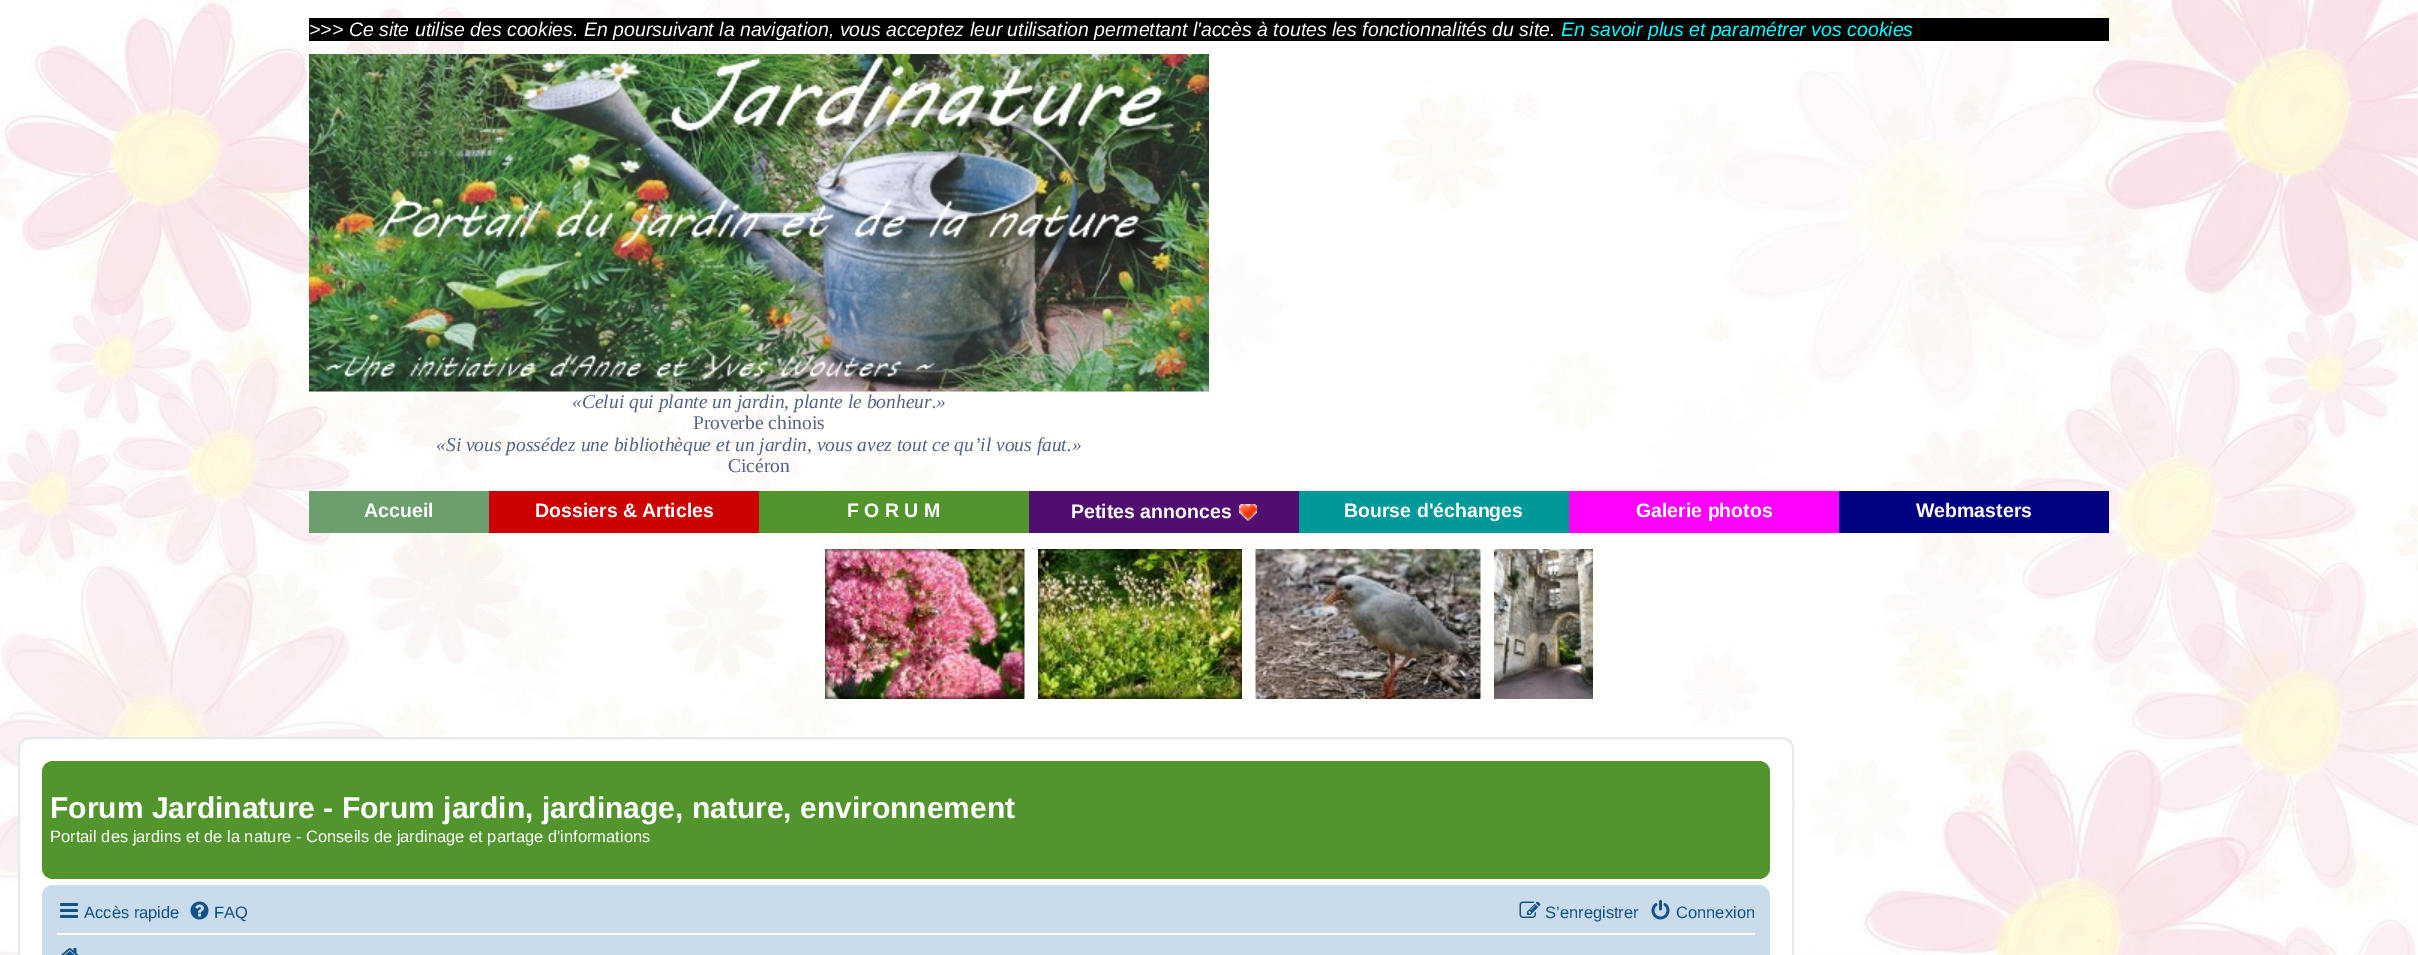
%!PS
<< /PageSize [2418 955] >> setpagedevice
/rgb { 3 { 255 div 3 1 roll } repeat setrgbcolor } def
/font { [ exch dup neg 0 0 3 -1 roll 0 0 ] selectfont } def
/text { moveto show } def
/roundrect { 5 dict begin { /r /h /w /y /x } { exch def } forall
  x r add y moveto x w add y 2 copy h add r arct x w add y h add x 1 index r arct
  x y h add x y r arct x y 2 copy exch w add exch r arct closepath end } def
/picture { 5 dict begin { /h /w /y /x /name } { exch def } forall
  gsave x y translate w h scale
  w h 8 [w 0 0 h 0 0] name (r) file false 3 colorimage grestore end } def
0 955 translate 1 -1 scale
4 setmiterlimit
255 255 255 rgb
0 0 2418 955 rectfill
(img_01.rgb) 0 0 2418 955 picture
0 0 0 rgb
309 18 1800 23 rectfill
(img_02.rgb) 309 54 900 338 picture
108 159 109 rgb
309 491 180 42 rectfill
204 0 0 rgb
489 491 270 42 rectfill
82 149 45 rgb
759 491 270 42 rectfill
80 14 112 rgb
1029 491 270 42 rectfill
(img_03.rgb) 1239 504 18 17 picture
0 153 153 rgb
1299 491 270 42 rectfill
255 0 255 rgb
1569 491 270 42 rectfill
0 0 128 rgb
1839 491 270 42 rectfill
(img_04.rgb) 825 549 200 150 picture
(img_05.rgb) 1038 549 204 150 picture
(img_06.rgb) 1255 549 226 150 picture
(img_07.rgb) 1494 549 99 150 picture
255 255 255 rgb
19 738 1774 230 11 roundrect gsave fill grestore
230 233 237 rgb
2 setlinewidth
stroke
82 149 45 rgb
42 761 1728 118 11 roundrect fill
202 220 235 rgb
42 885 1728 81 11 roundrect fill
(img_08.rgb) 60 903 18 15 picture
(img_09.rgb) 190 901 19 19 picture
(img_10.rgb) 1519 901 22 17 picture
(img_11.rgb) 1651 900 19 20 picture
255 255 255 rgb
57 933 1698 2 rectfill
(img_12.rgb) 61 948 18 7 picture
/LiberationSans-Italic 19.5 font
(>>> Ce site utilise des cookies. En poursuivant la navigation, vous acceptez leur utilisation permettant l'accès à toutes les fonctionnalités du site.) 309 36 text
0 255 255 rgb
(En savoir plus et paramétrer vos cookies) 1561 36 text
/LiberationSerif-Italic 19.5 font
83 100 130 rgb
(«Celui qui plante un jardin, plante le bonheur.») 572 408 text
/LiberationSerif-Regular 19.5 font
(Proverbe chinois) 693 429 text
/LiberationSerif-Italic 19.5 font
(«Si vous possédez une bibliothèque et un jardin, vous avez tout ce qu’il vous faut.») 436 451 text
/LiberationSerif-Regular 19.5 font
(Cicéron) 728 472 text
/LiberationSans-Bold 19.5 font
255 255 255 rgb
(Accueil) 364 517 text
(Dossiers & Articles) 535 517 text
(F O R U M) 847 517 text
(Petites annonces) 1071 518 text
(Bourse d'échanges) 1344 517 text
(Galerie photos) 1636 517 text
(Webmasters) 1916 517 text
/LiberationSans-Bold 30 font
(Forum Jardinature - Forum jardin, jardinage, nature, environnement) 50 818 text
/LiberationSans-Regular 16.5 font
(Portail des jardins et de la nature - Conseils de jardinage et partage d'informations) 50 842 text
16 82 137 rgb
(Accès rapide) 84 918 text
(FAQ) 214 918 text
(S’enregistrer) 1545 918 text
(Connexion) 1676 918 text
showpage
